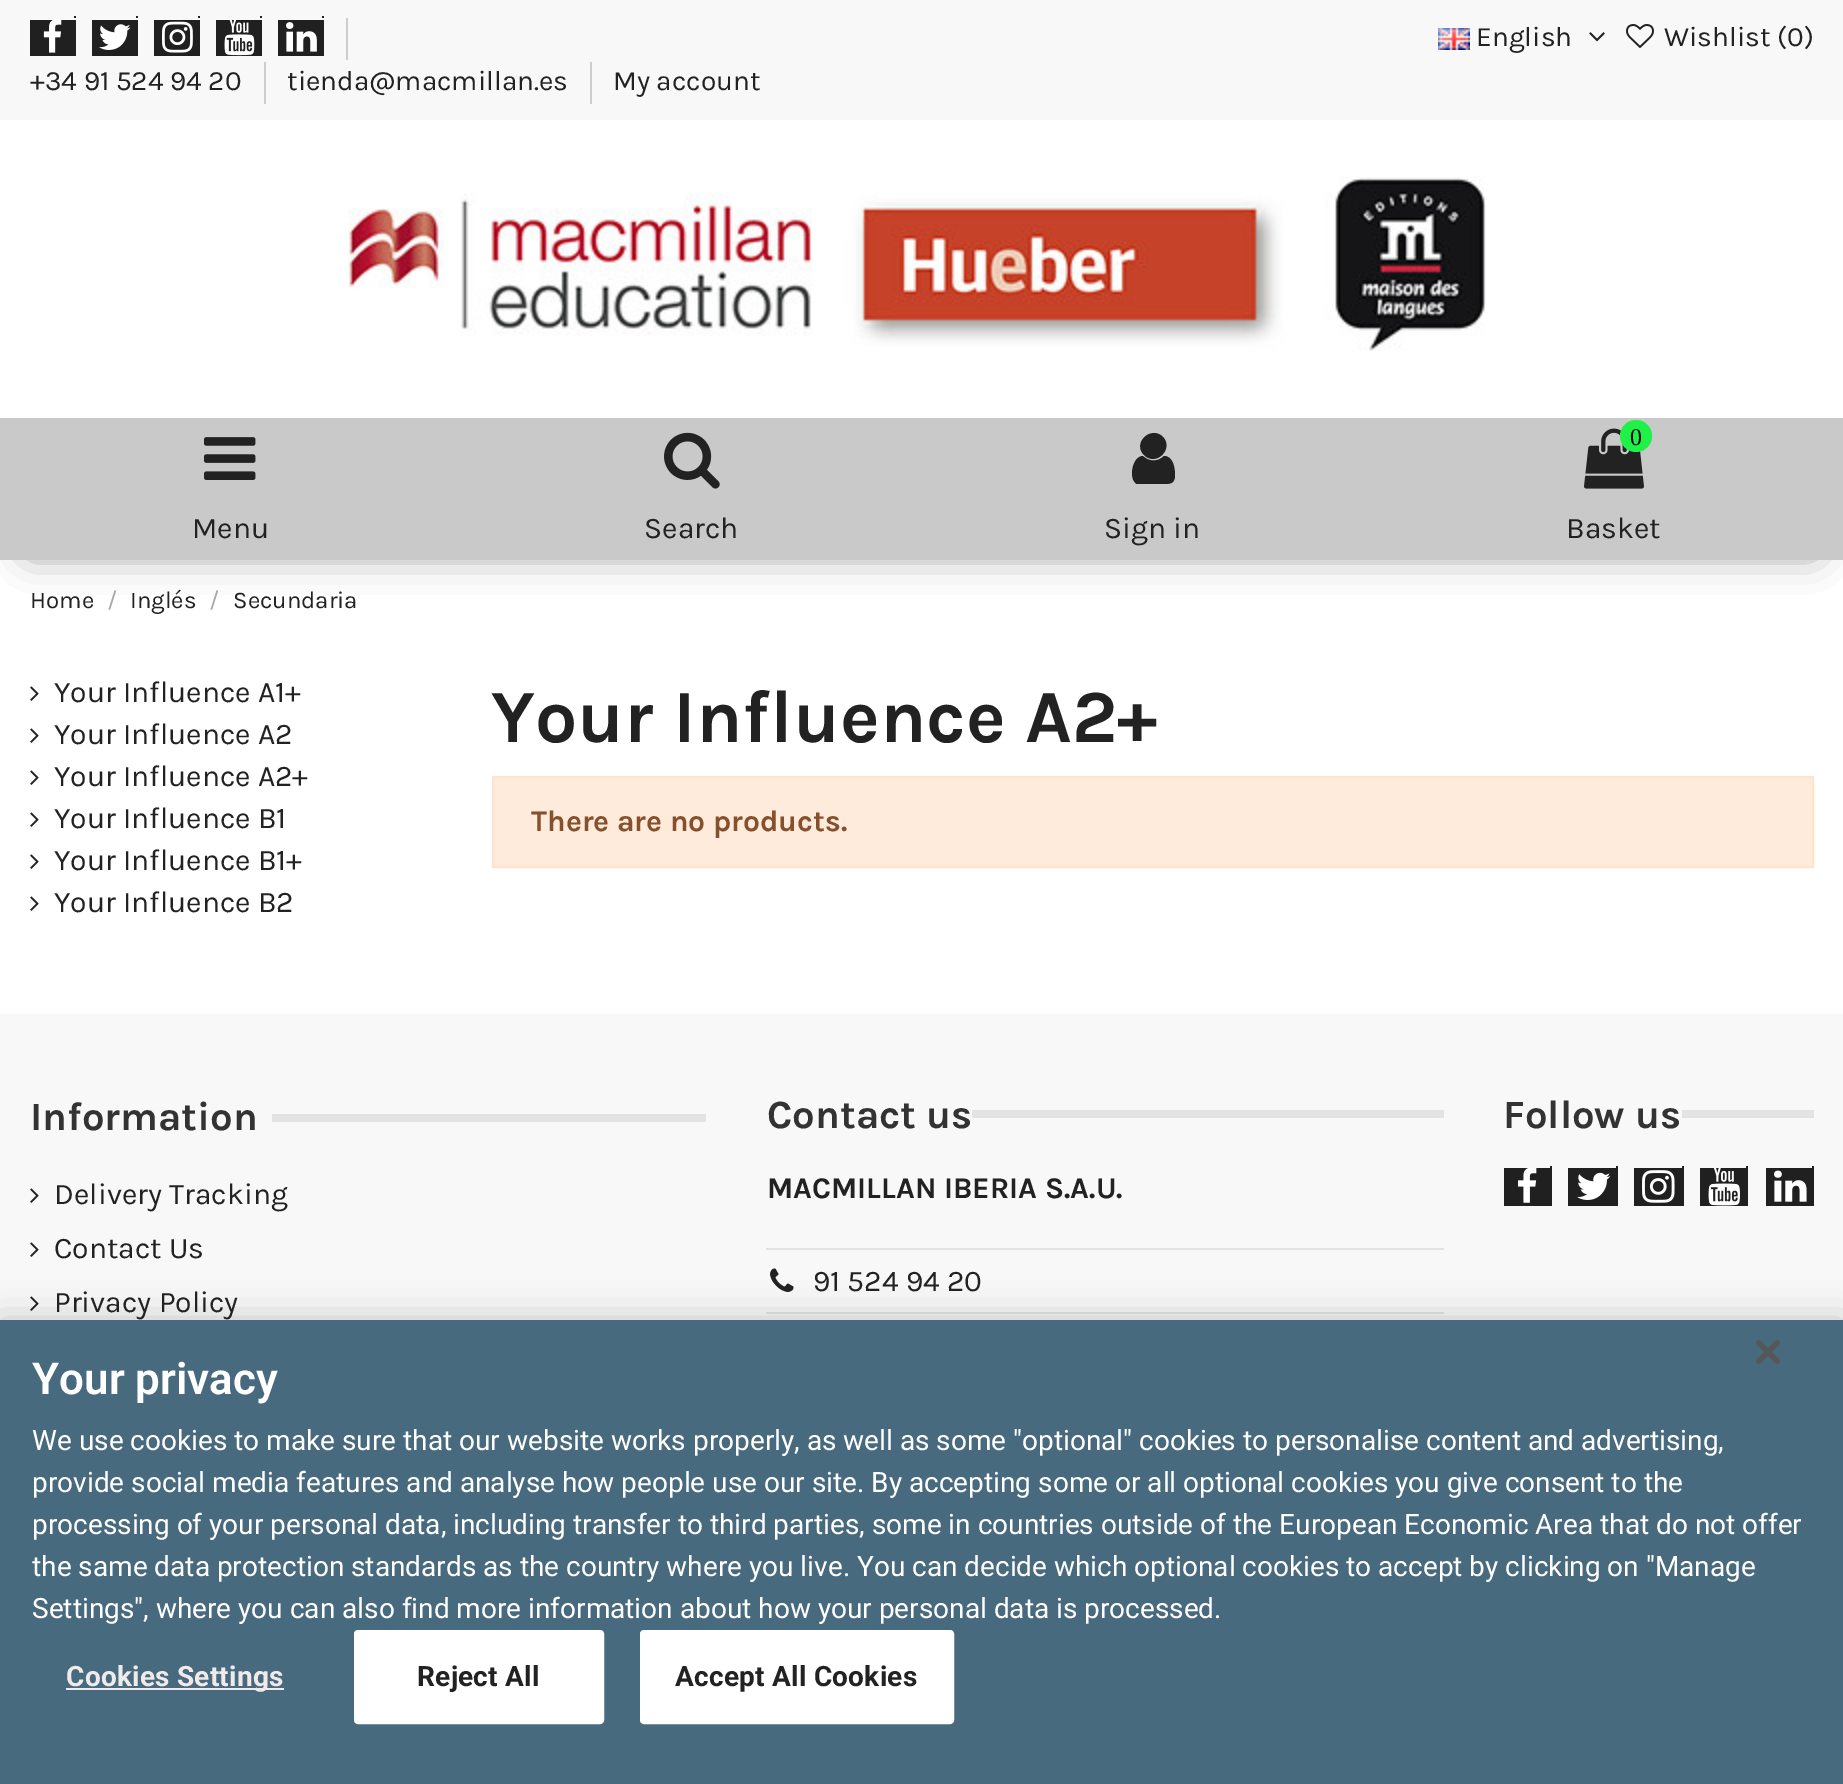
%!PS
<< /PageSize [1843 1784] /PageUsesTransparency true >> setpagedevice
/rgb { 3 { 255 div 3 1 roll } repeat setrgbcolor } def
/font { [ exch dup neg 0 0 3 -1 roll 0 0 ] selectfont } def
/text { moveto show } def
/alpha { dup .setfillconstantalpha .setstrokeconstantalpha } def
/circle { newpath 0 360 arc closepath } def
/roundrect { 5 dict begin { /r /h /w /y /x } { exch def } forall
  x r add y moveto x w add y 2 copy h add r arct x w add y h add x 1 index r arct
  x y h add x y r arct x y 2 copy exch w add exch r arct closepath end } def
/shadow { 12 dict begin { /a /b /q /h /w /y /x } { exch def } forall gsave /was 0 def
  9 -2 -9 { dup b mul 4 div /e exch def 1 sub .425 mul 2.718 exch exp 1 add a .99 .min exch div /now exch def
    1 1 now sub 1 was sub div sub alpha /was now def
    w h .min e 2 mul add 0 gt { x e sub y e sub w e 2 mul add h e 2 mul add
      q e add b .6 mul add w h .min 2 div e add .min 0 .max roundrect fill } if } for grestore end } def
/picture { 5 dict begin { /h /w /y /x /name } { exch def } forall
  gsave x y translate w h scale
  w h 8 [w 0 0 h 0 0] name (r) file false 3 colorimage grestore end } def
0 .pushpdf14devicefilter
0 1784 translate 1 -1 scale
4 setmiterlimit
255 255 255 rgb
0 0 1843 1784 rectfill
248 248 248 rgb
0 0 1843 120 rectfill
(img_01.rgb) 1438 28 32 22 picture
(img_02.rgb) 1589 32 16 10 picture
(img_03.rgb) 1626 24 28 24 picture
32 32 32 rgb
30 20 46 36 rectfill
74 16 2 2 rectfill
(img_04.rgb) 43 19 19 34 picture
92 20 46 36 rectfill
136 16 2 2 rectfill
(img_05.rgb) 99 24 32 26 picture
154 20 46 36 rectfill
198 16 2 2 rectfill
(img_06.rgb) 162 21 31 32 picture
216 20 46 36 rectfill
260 16 2 2 rectfill
(img_07.rgb) 224 19 31 37 picture
278 20 46 36 rectfill
322 16 2 2 rectfill
(img_08.rgb) 286 22 31 30 picture
205 205 205 rgb
346 18 2 42 rectfill
264 62 2 42 rectfill
590 62 2 42 rectfill
(img_09.rgb) 348 176 1139 175 picture
0 0 0 rgb
30 468 1784 82 0 20 0.5 shadow
201 201 201 rgb
0 418 1843 142 rectfill
(img_10.rgb) 204 437 52 43 picture
(img_11.rgb) 664 432 56 57 picture
34 34 34 rgb
1175 475 moveto 0 9 -5 9 -12 9 rcurveto -26 0 rlineto -9 -4 -5 -28 6 -28 rcurveto 6 6 15 6 21 0 rcurveto 9 0 11 12 11 19 rcurveto closepath 1163 437 moveto 11 12 -7 30 -19 18 rcurveto -12 -12 7 -30 19 -18 rcurveto closepath fill
(img_12.rgb) 1584 428 60 61 picture
30 242 72 rgb
1636 436 16 circle fill
(img_13.rgb) 30 686 9 15 picture
(img_13.rgb) 30 728 9 15 picture
(img_13.rgb) 30 770 9 15 picture
(img_13.rgb) 30 812 9 15 picture
(img_13.rgb) 30 854 9 15 picture
(img_13.rgb) 30 896 9 15 picture
255 235 220 rgb
493 777 moveto 1320 0 rlineto 0 90 rlineto -1320 0 rlineto closepath gsave fill grestore
255 227 207 rgb
2 setlinewidth
stroke
248 248 248 rgb
0 1014 1843 306 rectfill
227 227 227 rgb
272 1114 434 8 rectfill
(img_14.rgb) 30 1188 9 15 picture
(img_14.rgb) 30 1242 9 15 picture
(img_14.rgb) 30 1296 9 15 picture
972 1110 472 8 rectfill
226 226 226 rgb
766 1248 678 2 rectfill
(img_15.rgb) 770 1268 24 24 picture
766 1312 678 2 rectfill
227 227 227 rgb
1682 1110 132 8 rectfill
32 32 32 rgb
1504 1168 48 38 rectfill
1550 1166 2 2 rectfill
(img_16.rgb) 1518 1168 19 35 picture
1568 1168 50 38 rectfill
1616 1166 2 2 rectfill
(img_17.rgb) 1577 1172 34 28 picture
1634 1168 50 38 rectfill
1682 1166 2 2 rectfill
(img_18.rgb) 1642 1170 33 33 picture
1700 1168 48 38 rectfill
1746 1166 2 2 rectfill
(img_19.rgb) 1708 1167 32 39 picture
1766 1168 48 38 rectfill
1812 1166 2 2 rectfill
(img_20.rgb) 1774 1170 33 32 picture
0 0 0 rgb
0 1320 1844 464 0 18 0.2 shadow
72 106 126 rgb
0 1320 1843 464 rectfill
(img_21.rgb) 1756 1340 24 24 picture
240 234 234 rgb
66 1688 218 2 rectfill
255 255 255 rgb
355 1631 248 92 3 roundrect gsave fill grestore
stroke
641 1631 312 92 3 roundrect gsave fill grestore
stroke
/Karla-Regular 28 font
34 34 34 rgb
(English) 1476 46 text
(Wishlist \(0\)) 1664 46 text
(+34 91 524 94 20) 30 90 text
(tienda@macmillan.es) 287 90 text
(My account) 613 90 text
/Karla-Regular 30 font
(Menu) 192 538 text
(Search) 644 538 text
(Sign in) 1104 538 text
/LiberationSerif-Regular 24 font
0 0 0 rgb
(0) 1630 445 text
/Karla-Regular 30 font
34 34 34 rgb
(Basket) 1566 538 text
/Karla-Regular 24 font
(Home) 30 608 text
167 167 167 rgb
(/) 107 608 text
34 34 34 rgb
(Inglés) 130 608 text
167 167 167 rgb
(/) 209 608 text
34 34 34 rgb
(Secundaria) 233 608 text
/Karla-Regular 30 font
(Your Influence A1+) 54 702 text
(Your Influence A2) 54 744 text
(Your Influence A2+) 54 786 text
(Your Influence B1) 54 828 text
(Your Influence B1+) 54 870 text
(Your Influence B2) 54 912 text
/Karla-Bold 75 font
(Your Influence A2+) 491 742 text
/Karla-Bold 30 font
133 80 43 rgb
(There are no products.) 531 831 text
/Karla-Bold 40 font
51 51 51 rgb
(Information) 30 1130 text
/Karla-Regular 30 font
34 34 34 rgb
(Delivery Tracking) 54 1204 text
(Contact Us) 54 1258 text
(Privacy Policy) 54 1312 text
/Karla-Bold 40 font
51 51 51 rgb
(Contact us) 767 1128 text
/Karla-Bold 30 font
34 34 34 rgb
(MACMILLAN IBERIA S.A.U.) 767 1198 text
/Karla-Regular 30 font
(91 524 94 20) 813 1291 text
/Karla-Bold 40 font
51 51 51 rgb
(Follow us) 1503 1128 text
/Roboto-SemiBold 44 font
255 255 255 rgb
(Your privacy) 32 1394 text
/Roboto-Regular 28 font
(We use cookies to make sure that our website works properly, as well as some "optional" cookies to personalise content and advertising,) 32 1450 text
(provide social media features and analyse how people use our site. By accepting some or all optional cookies you give consent to the) 32 1492 text
(processing of your personal data, including transfer to third parties, some in countries outside of the European Economic Area that do not offer) 32 1534 text
(the same data protection standards as the country where you live. You can decide which optional cookies to accept by clicking on "Manage) 32 1576 text
(Settings", where you can also find more information about how your personal data is processed.) 32 1618 text
/Roboto-Bold 28 font
240 234 234 rgb
66 1686 moveto 0.25 0 (Cookies Settings) ashow
34 34 34 rgb
417 1686 moveto 0.25 0 (Reject All) ashow
675 1686 moveto 0.25 0 (Accept All Cookies) ashow
.poppdf14devicefilter showpage
